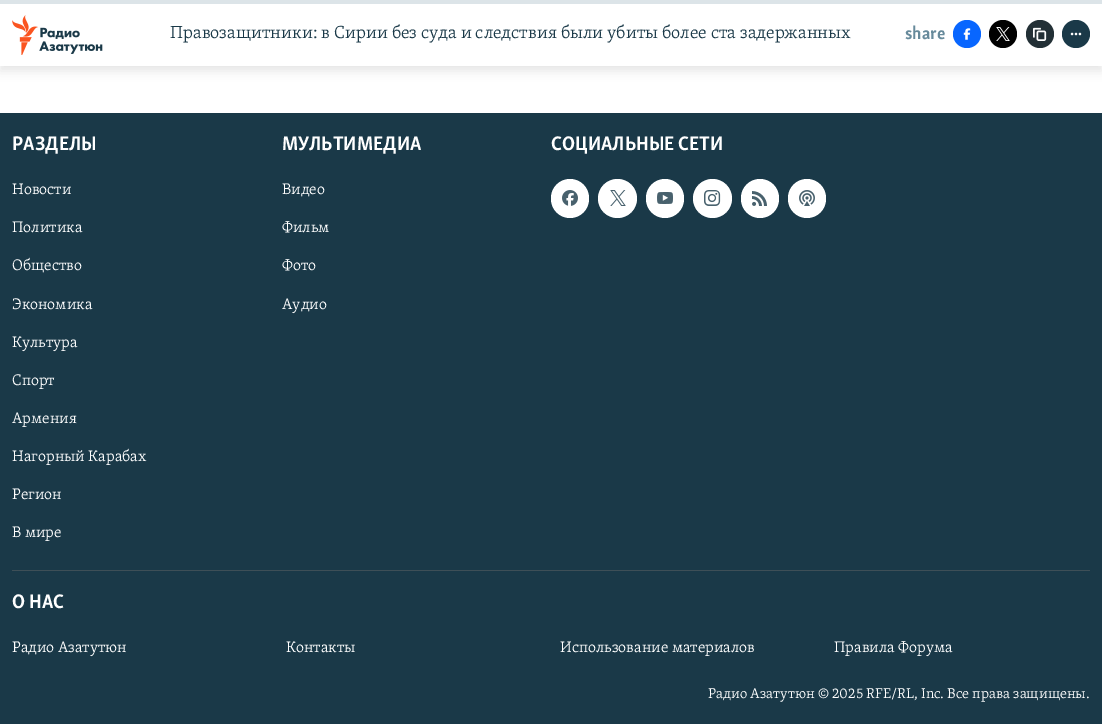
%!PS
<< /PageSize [1102 724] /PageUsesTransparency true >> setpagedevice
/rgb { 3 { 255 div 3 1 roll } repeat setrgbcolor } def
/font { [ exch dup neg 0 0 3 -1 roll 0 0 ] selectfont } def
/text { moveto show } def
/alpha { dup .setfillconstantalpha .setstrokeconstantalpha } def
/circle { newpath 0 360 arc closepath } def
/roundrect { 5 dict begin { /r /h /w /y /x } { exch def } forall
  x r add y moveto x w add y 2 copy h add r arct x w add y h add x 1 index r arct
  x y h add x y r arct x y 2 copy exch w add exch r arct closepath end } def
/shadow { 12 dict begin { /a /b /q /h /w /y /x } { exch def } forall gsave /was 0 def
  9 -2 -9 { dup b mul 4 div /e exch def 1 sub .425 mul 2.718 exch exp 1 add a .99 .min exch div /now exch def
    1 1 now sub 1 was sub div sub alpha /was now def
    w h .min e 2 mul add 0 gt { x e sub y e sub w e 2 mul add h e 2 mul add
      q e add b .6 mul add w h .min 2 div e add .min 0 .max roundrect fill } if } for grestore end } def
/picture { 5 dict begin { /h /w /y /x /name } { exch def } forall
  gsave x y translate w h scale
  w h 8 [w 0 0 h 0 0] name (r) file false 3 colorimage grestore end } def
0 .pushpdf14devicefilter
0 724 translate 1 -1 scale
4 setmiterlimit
255 255 255 rgb
0 0 1102 724 rectfill
0 0 0 rgb
0 5 1102 66 0 5 0.1 shadow
255 255 255 rgb
0 4 1102 62 rectfill
220 228 232 rgb
0 0 1102 4 rectfill
(img_01.rgb) 12 15 91 40 picture
8 102 255 rgb
967 34 14 circle fill
(img_02.rgb) 963 28 8 12 picture
0 0 0 rgb
1003 34 14 circle fill
(img_03.rgb) 996 27 14 14 picture
35 48 54 rgb
1040 34 14 circle fill
(img_04.rgb) 1033 27 14 14 picture
26 57 72 rgb
1076 34 14 circle fill
(img_05.rgb) 1070 32 12 4 picture
0 113 1102 611 rectfill
255 255 255 rgb
551 179 38 39 19 roundrect fill
(img_06.rgb) 562 190 16 16 picture
617.5 198.5 19.5 circle fill
(img_07.rgb) 610 190 16 16 picture
646 179 38 39 19 roundrect fill
(img_08.rgb) 657 192 16 12 picture
712.5 198.5 19.5 circle fill
(img_09.rgb) 704 190 17 16 picture
741 179 38 39 19 roundrect fill
(img_10.rgb) 752 191 15 15 picture
788 179 38 39 19 roundrect fill
(img_11.rgb) 799 190 16 16 picture
62 79 87 rgb
12 570 1078 1 rectfill
/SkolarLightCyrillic-Light 18 font
26 57 72 rgb
(Правозащитники: в Сирии без суда и следствия были убиты более ста задержанных) 170 38 text
/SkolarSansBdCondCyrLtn-Bold 18 font
103 138 155 rgb
(share) 905 39 text
/SkolarSansBdCondCyrLtn-Bold 20.25 font
255 255 255 rgb
(РАЗДЕЛЫ) 12 150 text
/SkolarLightCyrillic-Light 15.75 font
(Новости) 12 194 text
(Политика) 12 232 text
(Общество) 12 270 text
(Экономика) 12 309 text
(Культура) 12 347 text
(Спорт) 12 385 text
(Армения) 12 423 text
(Нагорный Карабах) 12 461 text
(Регион) 12 499 text
(В мире) 12 537 text
/SkolarSansBdCondCyrLtn-Bold 20.25 font
(МУЛЬТИМЕДИА) 282 150 text
/SkolarLightCyrillic-Light 15.75 font
(Видео) 282 194 text
(Фильм) 282 232 text
(Фото) 282 270 text
(Аудио) 282 309 text
/SkolarSansBdCondCyrLtn-Bold 20.25 font
(СОЦИАЛЬНЫЕ СЕТИ) 551 150 text
(О НАС) 12 608 text
/SkolarLightCyrillic-Light 15.75 font
(Радио Азатутюн) 12 652 text
(Контакты) 286 652 text
(Использование материалов) 560 652 text
(Правила Форума) 834 652 text
/SkolarLightCyrillic-Light 14.6 font
(Радио Азатутюн © 2025 RFE/RL, Inc. Все права защищены.) 708 698 text
.poppdf14devicefilter showpage
